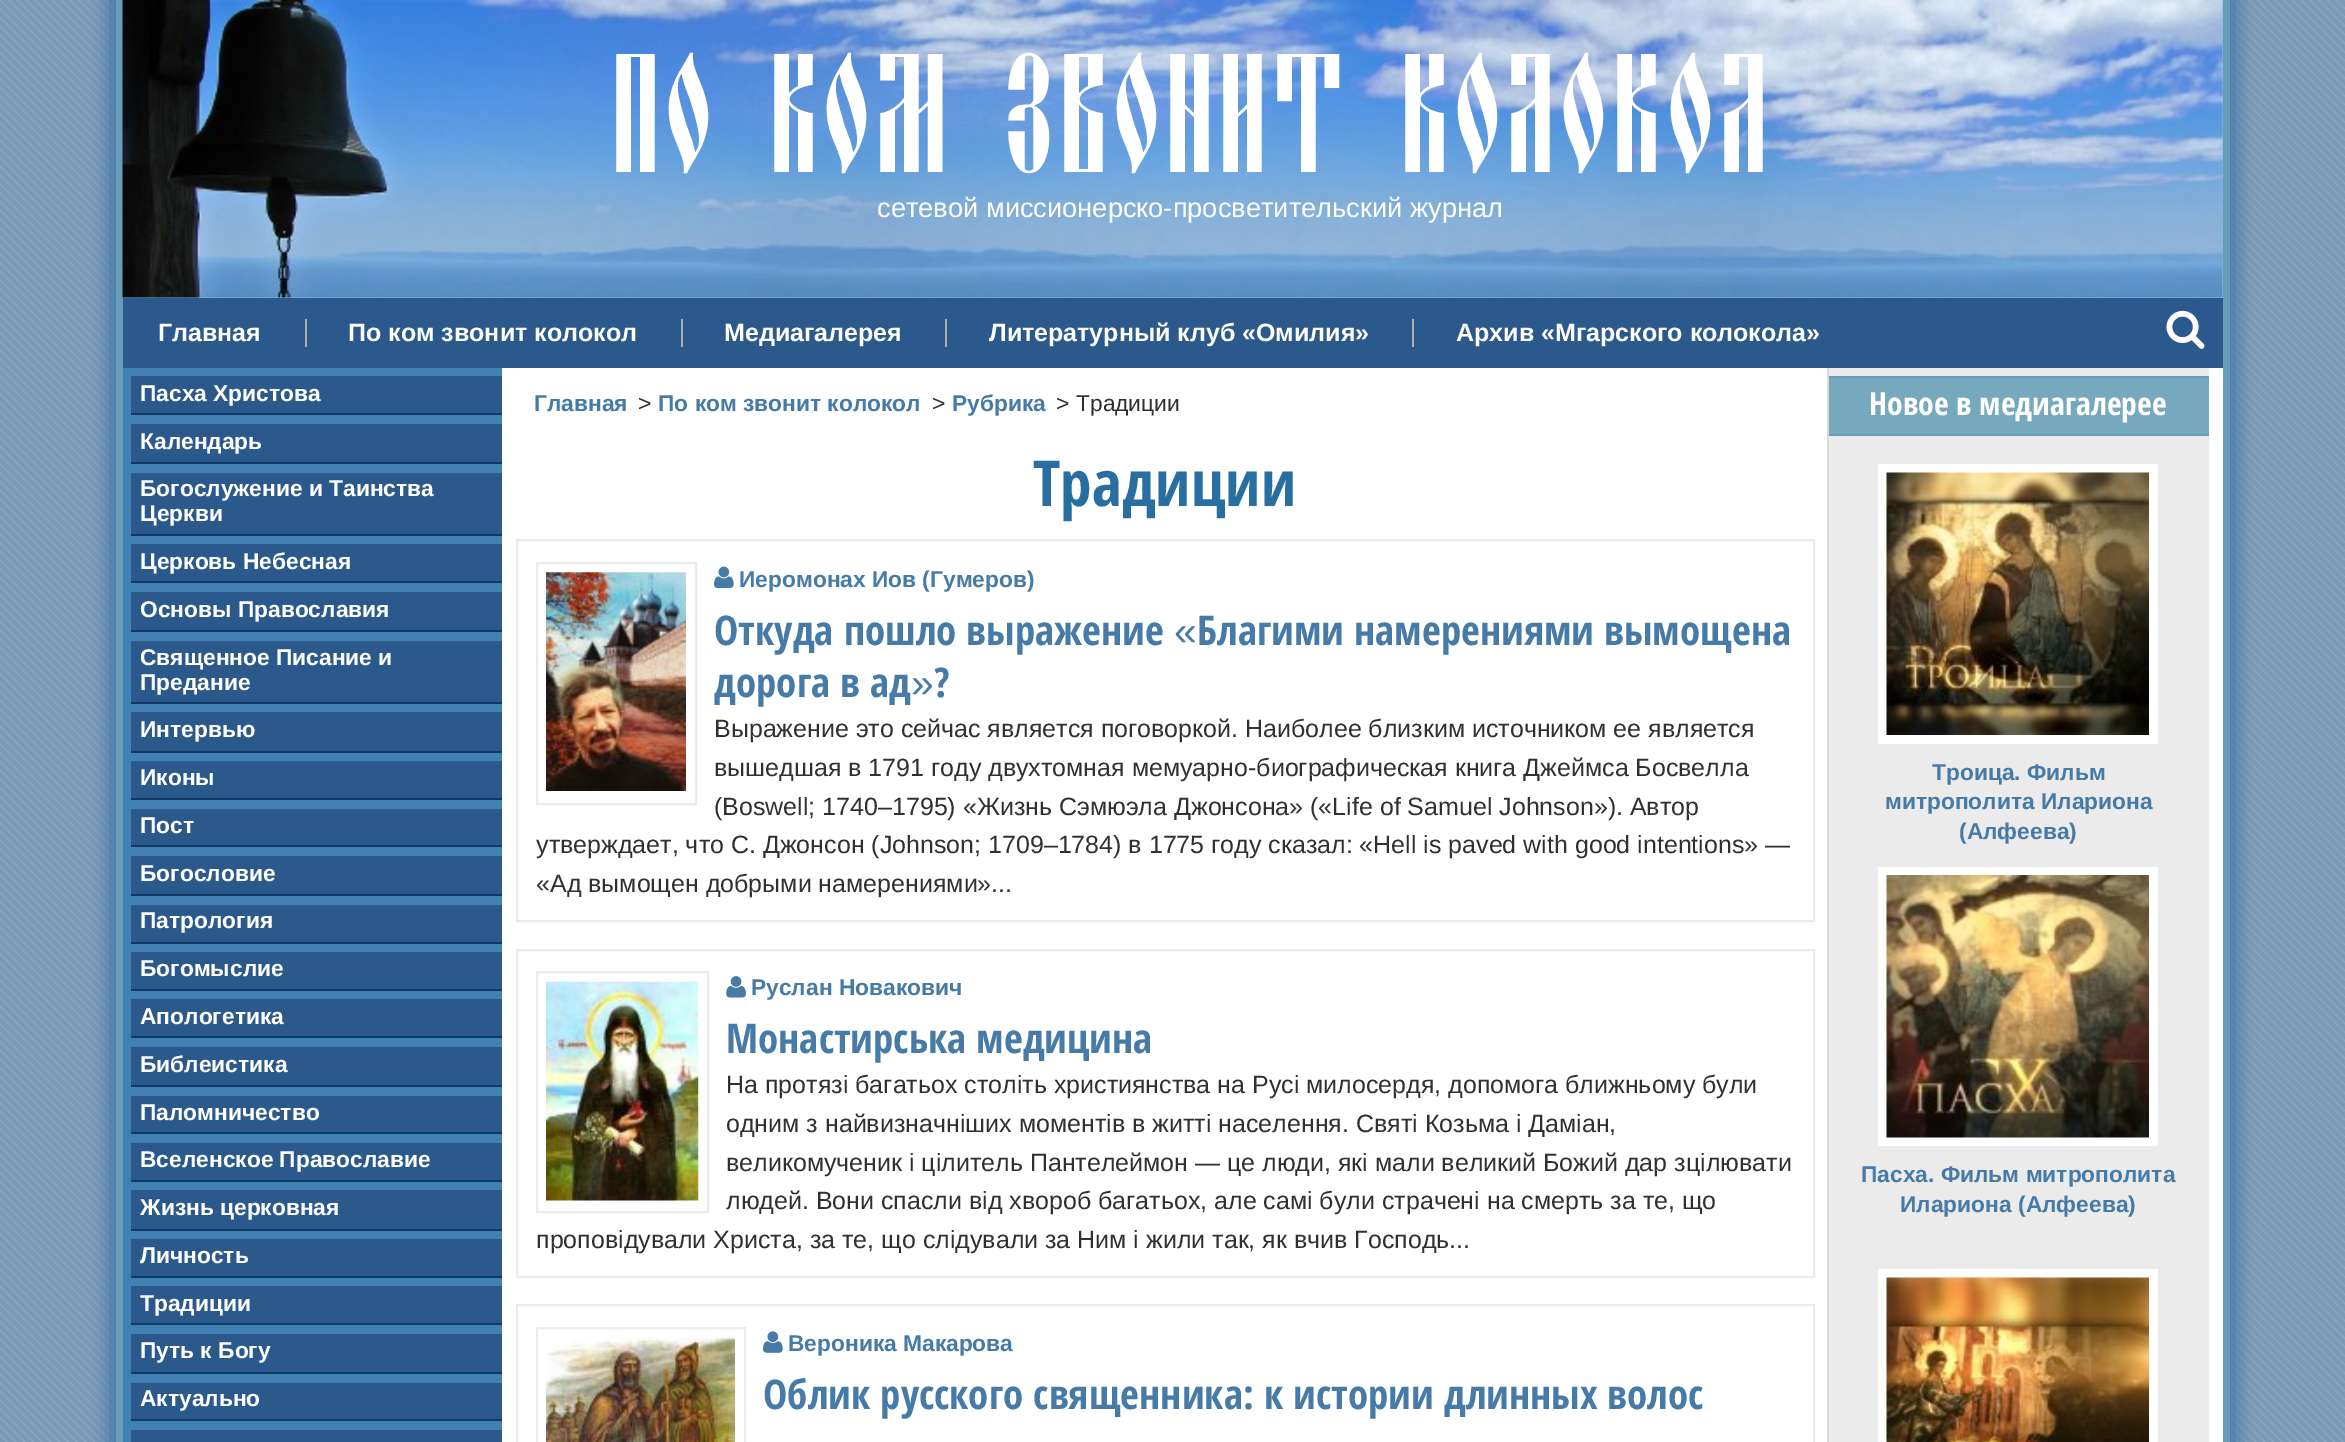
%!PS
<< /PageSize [2345 1442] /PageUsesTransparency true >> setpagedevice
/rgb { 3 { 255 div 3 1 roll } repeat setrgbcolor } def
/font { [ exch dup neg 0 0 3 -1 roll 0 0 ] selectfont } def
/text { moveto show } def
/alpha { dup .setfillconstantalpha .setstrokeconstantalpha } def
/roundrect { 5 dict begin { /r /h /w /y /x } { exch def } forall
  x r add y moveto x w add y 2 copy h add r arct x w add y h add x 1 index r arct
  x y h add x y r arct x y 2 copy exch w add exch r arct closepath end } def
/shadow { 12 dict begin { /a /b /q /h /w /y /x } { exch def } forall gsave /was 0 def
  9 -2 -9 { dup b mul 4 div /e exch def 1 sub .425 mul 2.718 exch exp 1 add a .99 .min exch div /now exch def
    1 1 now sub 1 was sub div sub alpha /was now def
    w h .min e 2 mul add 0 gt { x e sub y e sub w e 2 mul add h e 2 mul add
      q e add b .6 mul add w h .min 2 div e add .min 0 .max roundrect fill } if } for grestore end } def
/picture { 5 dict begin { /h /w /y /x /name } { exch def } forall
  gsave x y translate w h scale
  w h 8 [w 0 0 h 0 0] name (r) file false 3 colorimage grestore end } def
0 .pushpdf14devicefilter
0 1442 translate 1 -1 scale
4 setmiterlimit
255 255 255 rgb
0 0 2345 1442 rectfill
(img_01.rgb) 0 0 2345 1442 picture
70 122 167 rgb
107 -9 2131 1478 0 9 1 shadow
255 255 255 rgb
502 368 1721 1074 rectfill
105 156 185 rgb
2223 0 7 1442 rectfill
116 0 7 1442 rectfill
128 187 236 rgb
123 0 2100 298 rectfill
(img_02.rgb) 122 0 2101 298 picture
43 89 139 rgb
123 298 2100 70 rectfill
174 174 174 rgb
305 319 2 28 rectfill
681 319 2 28 rectfill
945 319 2 28 rectfill
1412 319 2 28 rectfill
(img_03.rgb) 2166 310 39 39 picture
64 128 178 rgb
123 368 379 1074 rectfill
43 89 139 rgb
131 376 371 37 rectfill
16 58 103 rgb
131 413 371 2 rectfill
43 89 139 rgb
131 424 371 38 rectfill
16 58 103 rgb
131 462 371 2 rectfill
43 89 139 rgb
131 473 371 61 rectfill
16 58 103 rgb
131 534 371 2 rectfill
43 89 139 rgb
131 544 371 37 rectfill
16 58 103 rgb
131 581 371 2 rectfill
43 89 139 rgb
131 592 371 38 rectfill
16 58 103 rgb
131 630 371 2 rectfill
43 89 139 rgb
131 641 371 61 rectfill
16 58 103 rgb
131 702 371 2 rectfill
43 89 139 rgb
131 712 371 39 rectfill
16 58 103 rgb
131 751 371 2 rectfill
43 89 139 rgb
131 761 371 37 rectfill
16 58 103 rgb
131 798 371 2 rectfill
43 89 139 rgb
131 809 371 36 rectfill
16 58 103 rgb
131 845 371 2 rectfill
43 89 139 rgb
131 856 371 38 rectfill
16 58 103 rgb
131 894 371 2 rectfill
43 89 139 rgb
131 905 371 37 rectfill
16 58 103 rgb
131 942 371 2 rectfill
43 89 139 rgb
131 952 371 37 rectfill
16 58 103 rgb
131 989 371 2 rectfill
43 89 139 rgb
131 999 371 37 rectfill
16 58 103 rgb
131 1036 371 2 rectfill
43 89 139 rgb
131 1047 371 38 rectfill
16 58 103 rgb
131 1085 371 2 rectfill
43 89 139 rgb
131 1096 371 36 rectfill
16 58 103 rgb
131 1132 371 2 rectfill
43 89 139 rgb
131 1143 371 37 rectfill
16 58 103 rgb
131 1180 371 2 rectfill
43 89 139 rgb
131 1190 371 39 rectfill
16 58 103 rgb
131 1229 371 2 rectfill
43 89 139 rgb
131 1239 371 37 rectfill
16 58 103 rgb
131 1276 371 2 rectfill
43 89 139 rgb
131 1286 371 37 rectfill
16 58 103 rgb
131 1323 371 2 rectfill
43 89 139 rgb
131 1334 371 38 rectfill
16 58 103 rgb
131 1372 371 2 rectfill
43 89 139 rgb
131 1383 371 36 rectfill
16 58 103 rgb
131 1419 371 2 rectfill
43 89 139 rgb
131 1430 371 12 rectfill
235 235 235 rgb
2 setlinewidth
517 540 1297 381 rectstroke
537 563 159 241 rectstroke
(img_04.rgb) 546 572 140 219 picture
(img_05.rgb) 714 566 20 23 picture
517 950 1297 327 rectstroke
537 972 171 240 rectstroke
(img_06.rgb) 546 981 153 220 picture
(img_07.rgb) 726 976 20 22 picture
517 1305 1297 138 rectstroke
537 1328 208 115 rectstroke
(img_08.rgb) 546 1337 189 105 picture
(img_09.rgb) 763 1331 20 22 picture
1829 368 380 1074 rectfill
219 219 219 rgb
1827 368 2 1074 rectfill
118 169 190 rgb
1829 378 380 56 rectfill
105 156 185 rgb
1829 376 380 2 rectfill
1829 434 380 2 rectfill
255 255 255 rgb
1878 464 280 280 rectfill
(img_10.rgb) 1886 472 263 263 picture
1878 867 280 279 rectfill
(img_11.rgb) 1886 875 263 263 picture
1878 1269 280 173 rectfill
(img_12.rgb) 1886 1277 263 165 picture
/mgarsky-Regular 147.75 font
(По ком звонит колокол) 609 172 text
/LiberationSans-Regular 27.25 font
(сетевой миссионерско-просветительский журнал) 877 217 text
/LiberationSans-Bold 25 font
(Главная) 158 341 text
(По ком звонит колокол) 348 341 text
(Медиагалерея) 724 341 text
(Литературный клуб «Омилия») 989 341 text
(Архив «Мгарского колокола») 1456 341 text
/LiberationSans-Bold 22.75 font
(Пасха Христова) 140 401 text
(Календарь) 140 449 text
(Богослужение и Таинства) 140 496 text
(Церкви) 140 521 text
(Церковь Небесная) 140 569 text
(Основы Православия) 140 617 text
(Священное Писание и) 140 665 text
(Предание) 140 690 text
(Интервью) 140 737 text
(Иконы) 140 785 text
(Пост) 140 833 text
(Богословие) 140 881 text
(Патрология) 140 928 text
(Богомыслие) 140 976 text
(Апологетика) 140 1024 text
(Библеистика) 140 1072 text
(Паломничество) 140 1120 text
(Вселенское Православие) 140 1167 text
(Жизнь церковная) 140 1215 text
(Личность) 140 1263 text
(Традиции) 140 1311 text
(Путь к Богу) 140 1358 text
(Актуально) 140 1406 text
70 122 167 rgb
(Главная) 534 411 text
/LiberationSans-Regular 22.75 font
48 48 48 rgb
(>) 638 411 text
/LiberationSans-Bold 22.75 font
70 122 167 rgb
(По ком звонит колокол) 658 411 text
/LiberationSans-Regular 22.75 font
48 48 48 rgb
(>) 932 411 text
/LiberationSans-Bold 22.75 font
70 122 167 rgb
(Рубрика) 952 411 text
/LiberationSans-Regular 22.75 font
48 48 48 rgb
(>) 1056 411 text
(Традиции) 1076 411 text
/OpenSansCondensed-Bold 63.5 font
40 110 160 rgb
(Традиции) 1033 506 text
/LiberationSans-Bold 22.75 font
70 122 167 rgb
(Иеромонах Иов \(Гумеров\)) 739 587 text
/OpenSansCondensed-Bold 40.9 font
(Откуда пошло выражение) 714 645 text
/LiberationSans-Regular 40.9 font
(«) 1174 645 text
/OpenSansCondensed-Bold 40.9 font
(Благими намерениями вымощена) 1197 645 text
(дорога в ад) 714 697 text
/LiberationSans-Regular 40.9 font
(») 911 697 text
/OpenSansCondensed-Bold 40.9 font
(?) 934 697 text
/LiberationSans-Regular 25 font
48 48 48 rgb
(Выражение это сейчас является поговоркой. Наиболее близким источником ее является) 714 737 text
(вышедшая в 1791 году двухтомная мемуарно-биографическая книга Джеймса Босвелла) 714 776 text
(\(Boswell; 1740–1795\) «Жизнь Сэмюэла Джонсона» \(«Life of Samuel Johnson»\). Автор) 714 815 text
(утверждает, что С. Джонсон \(Johnson; 1709–1784\) в 1775 году сказал: «Hell is paved with good intentions» —) 536 853 text
(«Ад вымощен добрыми намерениями»...) 536 892 text
/LiberationSans-Bold 22.75 font
70 122 167 rgb
(Руслан Новакович) 751 995 text
/OpenSansCondensed-Bold 40.9 font
(Монастирська медицина) 726 1053 text
/LiberationSans-Regular 25 font
48 48 48 rgb
(На протязі багатьох століть християнства на Русі милосердя, допомога ближньому були) 726 1093 text
(одним з найвизначніших моментів в житті населення. Святі Козьма і Даміан,) 726 1132 text
(великомученик і цілитель Пантелеймон — це люди, які мали великий Божий дар зцілювати) 726 1171 text
(людей. Вони спасли від хвороб багатьох, але самі були страчені на смерть за те, що) 726 1209 text
(проповідували Христа, за те, що слідували за Ним і жили так, як вчив Господь...) 536 1248 text
/LiberationSans-Bold 22.75 font
70 122 167 rgb
(Вероника Макарова) 788 1351 text
/OpenSansCondensed-Bold 40.9 font
(Облик русского священника: к истории длинных волос) 763 1409 text
/OpenSansCondensed-Bold 31.75 font
255 255 255 rgb
(Новое в медиагалерее) 1869 415 text
/LiberationSans-Bold 22.75 font
70 122 167 rgb
(Троица. Фильм) 1932 780 text
(митрополита Илариона) 1885 809 text
(\(Алфеева\)) 1959 839 text
(Пасха. Фильм митрополита) 1861 1182 text
(Илариона \(Алфеева\)) 1900 1212 text
.poppdf14devicefilter showpage
